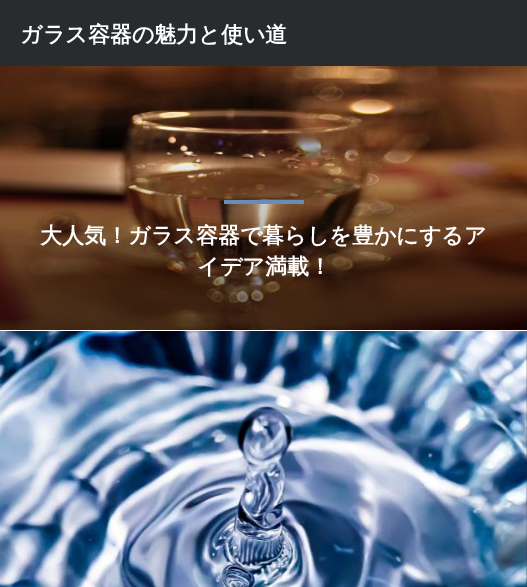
%!PS
<< /PageSize [527 587] >> setpagedevice
/rgb { 3 { 255 div 3 1 roll } repeat setrgbcolor } def
/font { [ exch dup neg 0 0 3 -1 roll 0 0 ] selectfont } def
/text { moveto show } def
/picture { 5 dict begin { /h /w /y /x /name } { exch def } forall
  gsave x y translate w h scale
  w h 8 [w 0 0 h 0 0] name (r) file false 3 colorimage grestore end } def
0 587 translate 1 -1 scale
4 setmiterlimit
255 255 255 rgb
0 0 527 587 rectfill
41 44 47 rgb
0 0 527 66 rectfill
(img_01.rgb) 0 66 527 264 picture
103 141 184 rgb
224 200 80 4 rectfill
(img_02.rgb) 0 331 527 256 picture
/WenQuanYiZenHei-Bold 22 font
255 255 255 rgb
(ガラス容器の魅力と使い道) 20 42 text
(大人気！ガラス容器で暮らしを豊かにするア) 40 243 text
(イデア満載！) 197 274 text
showpage
